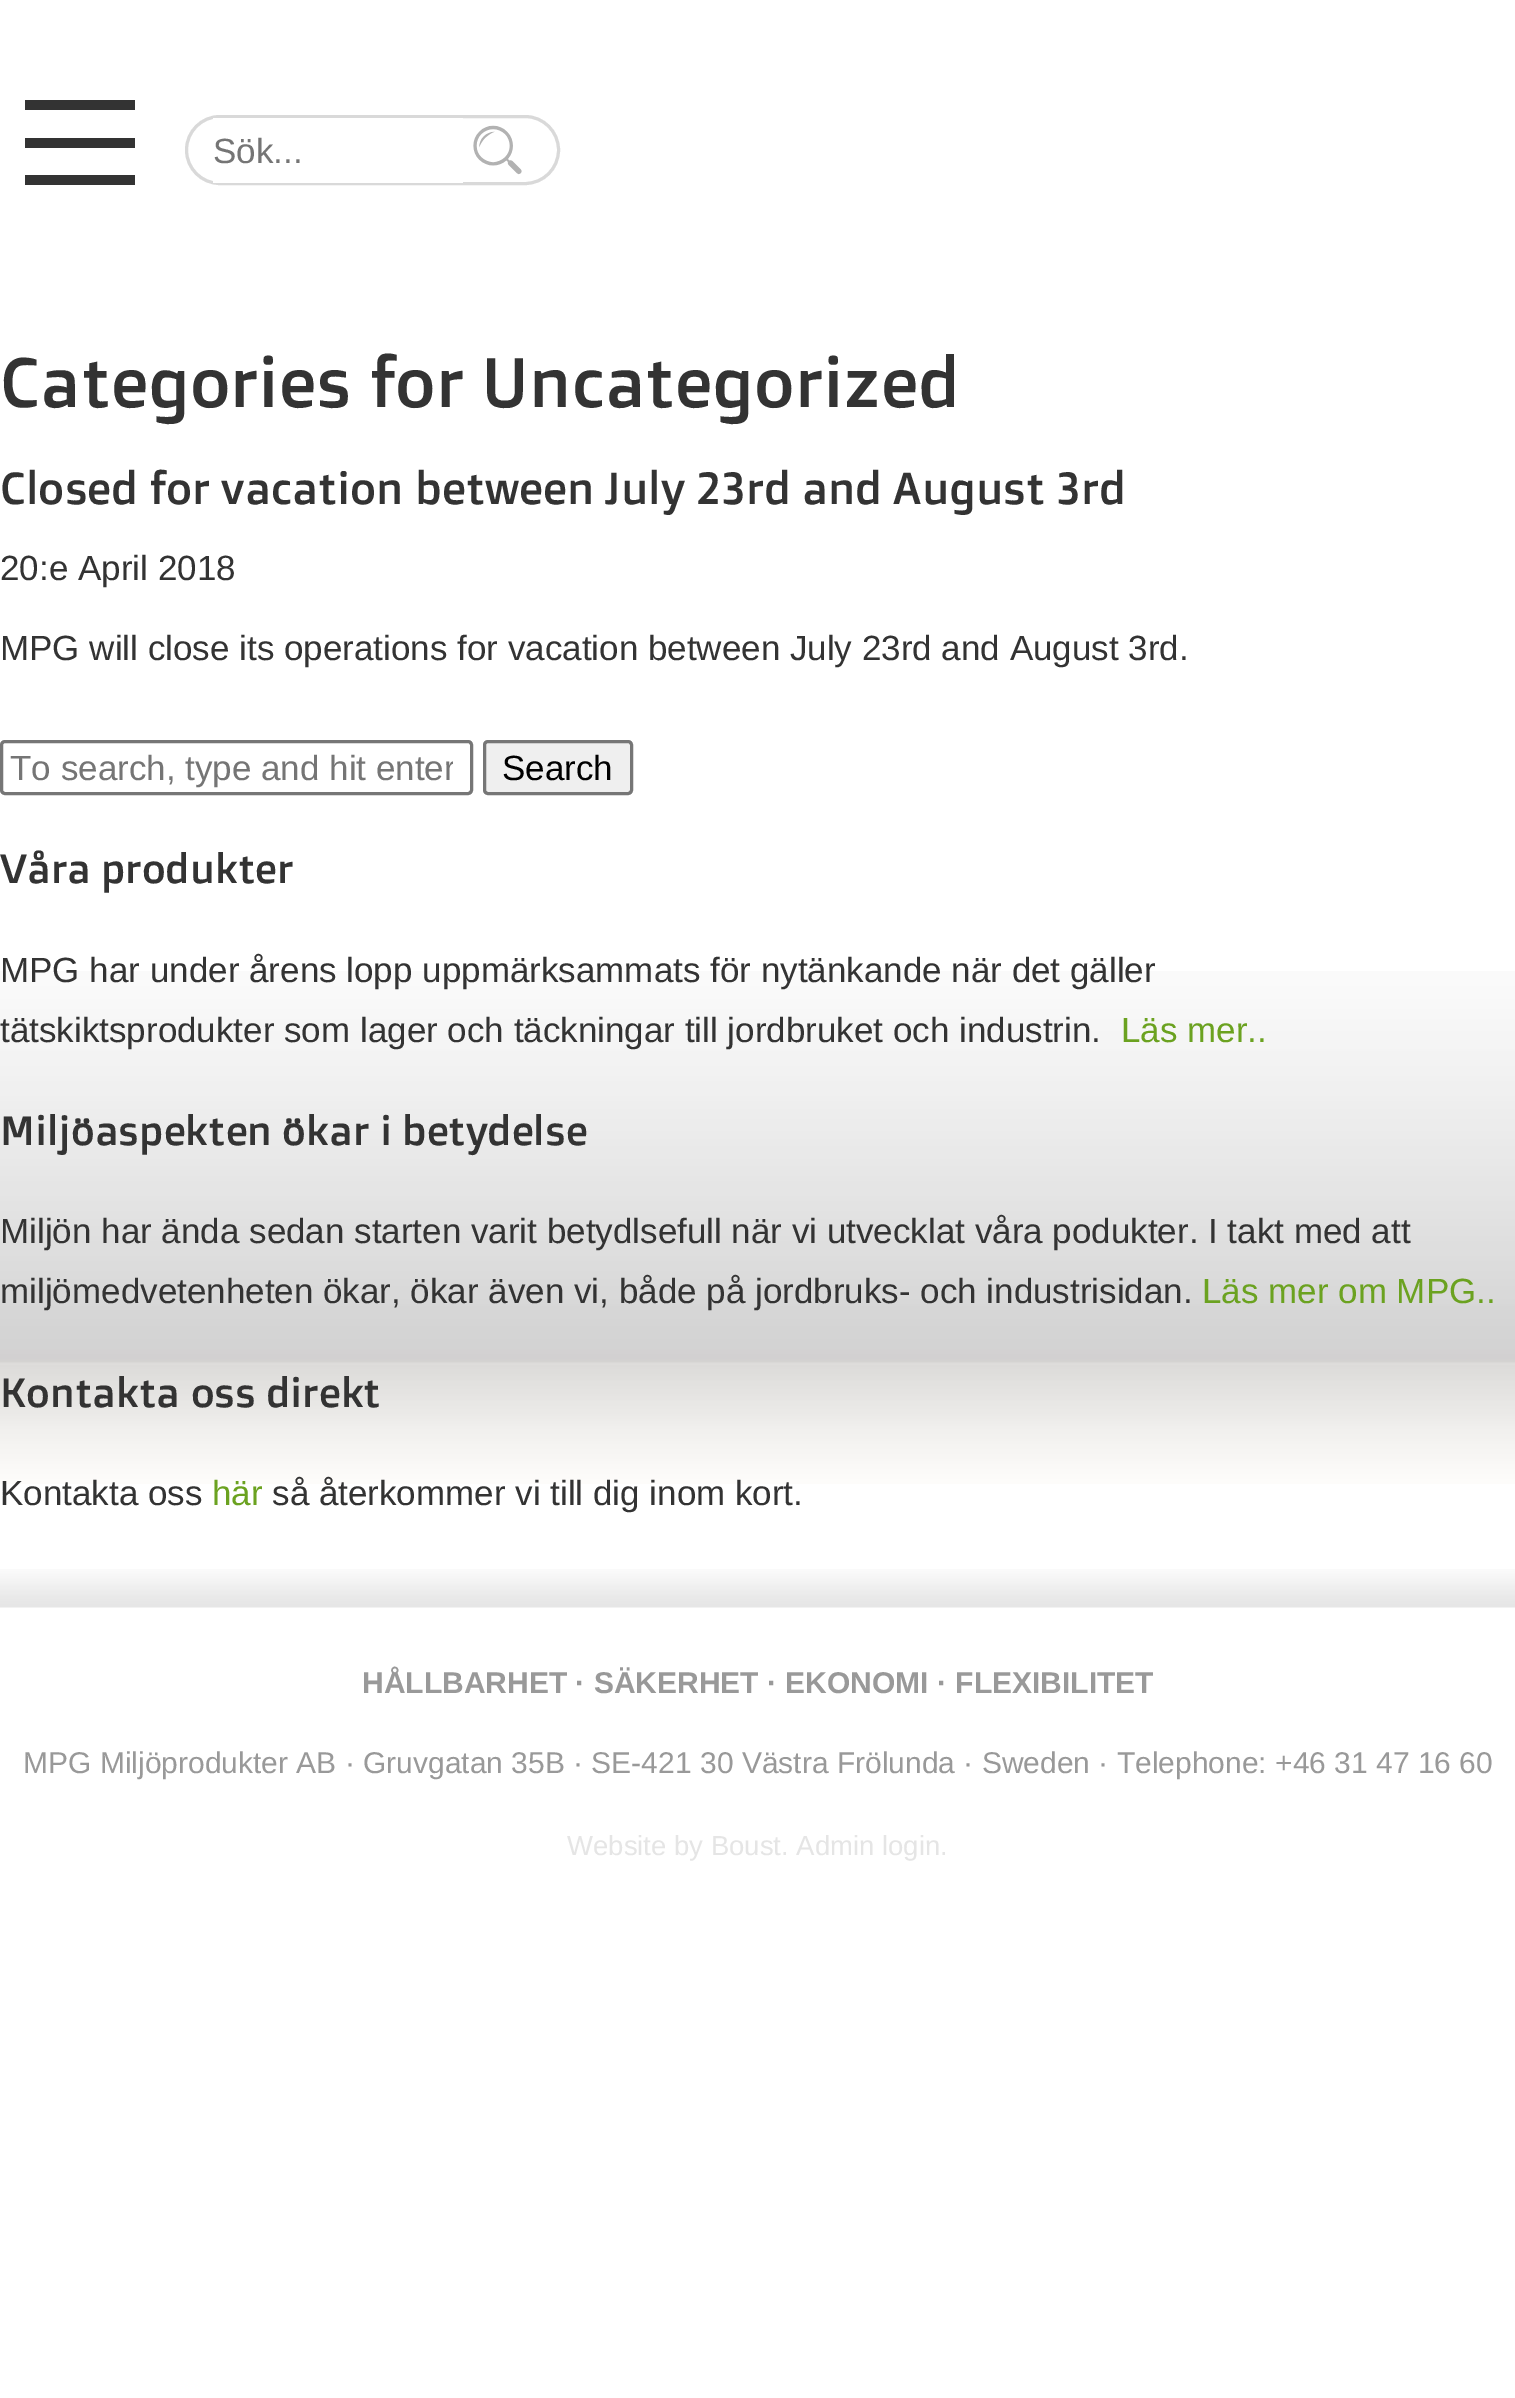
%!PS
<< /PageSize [1515 2398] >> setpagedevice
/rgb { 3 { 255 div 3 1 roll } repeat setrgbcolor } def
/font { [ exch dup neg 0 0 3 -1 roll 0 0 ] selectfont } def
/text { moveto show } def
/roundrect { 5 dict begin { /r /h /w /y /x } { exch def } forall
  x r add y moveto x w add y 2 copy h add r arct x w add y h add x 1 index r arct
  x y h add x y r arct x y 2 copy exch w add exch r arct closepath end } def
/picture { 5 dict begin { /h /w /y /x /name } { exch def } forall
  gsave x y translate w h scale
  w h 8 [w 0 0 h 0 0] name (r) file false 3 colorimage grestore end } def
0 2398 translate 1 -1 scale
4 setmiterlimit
255 255 255 rgb
0 0 1515 2398 rectfill
(img_01.rgb) 0 971 1515 513 picture
51 51 51 rgb
25 100 110 10 rectfill
25 175 110 10 rectfill
25 138 110 10 rectfill
217 217 217 rgb
3 setlinewidth
186.5 116.5 372 67 33.5 roundrect stroke
gsave
188 118 370 65 32.5 roundrect clip newpath
255 255 255 rgb
213 118 250 65 rectfill
grestore
(img_02.rgb) 473 125 49 50 picture
118 118 118 rgb
1.5 741.5 470 52 3.5 roundrect stroke
239 239 239 rgb
484.5 741.5 147 52 3.5 roundrect gsave fill grestore
118 118 118 rgb
stroke
(img_03.rgb) 0 1569 1515 39 picture
/LiberationSans-Regular 35 font
117 117 117 rgb
(Sök...) 213 163 text
/DoppioOne-Regular 70 font
51 51 51 rgb
(Categories for Uncategorized) 0 407 text
/DoppioOne-Regular 45 font
(Closed for vacation between July 23rd and August 3rd) 0 504 text
/LiberationSans-Regular 35 font
(20:e April 2018) 0 580 text
(MPG will close its operations for vacation between July 23rd and August 3rd.) 0 660 text
gsave
10 748 443 40 rectclip
117 117 117 rgb
(To search, type and hit enter) 10 780 text
grestore
0 0 0 rgb
(Search) 502 780 text
/DoppioOne-Regular 41 font
51 51 51 rgb
(Våra produkter) 0 883 text
/LiberationSans-Regular 35 font
(MPG har under årens lopp uppmärksammats för nytänkande när det gäller) 0 982 text
(tätskiktsprodukter som lager och täckningar till jordbruket och industrin.) 0 1042 text
107 162 32 rgb
(Läs mer..) 1121 1042 text
/DoppioOne-Regular 41 font
51 51 51 rgb
(Miljöaspekten ökar i betydelse) 0 1145 text
/LiberationSans-Regular 35 font
(Miljön har ända sedan starten varit betydlsefull när vi utvecklat våra podukter. I takt med att) 0 1243 text
(miljömedvetenheten ökar, ökar även vi, både på jordbruks- och industrisidan.) 0 1303 text
107 162 32 rgb
(Läs mer om MPG..) 1202 1303 text
/DoppioOne-Regular 41 font
51 51 51 rgb
(Kontakta oss direkt) 0 1407 text
/LiberationSans-Regular 35 font
(Kontakta oss) 0 1505 text
107 162 32 rgb
(här) 212 1505 text
51 51 51 rgb
(så återkommer vi till dig inom kort.) 272 1505 text
/LiberationSans-Bold 30 font
153 153 153 rgb
(HÅLLBARHET · SÄKERHET · EKONOMI · FLEXIBILITET) 362 1693 text
/LiberationSans-Regular 30 font
(MPG Miljöprodukter AB · Gruvgatan 35B · SE-421 30 Västra Frölunda · Sweden · Telephone: +46 31 47 16 60) 23 1773 text
/LiberationSans-Regular 27.5 font
229 229 229 rgb
(Website by Boust. Admin login.) 567 1855 text
showpage
